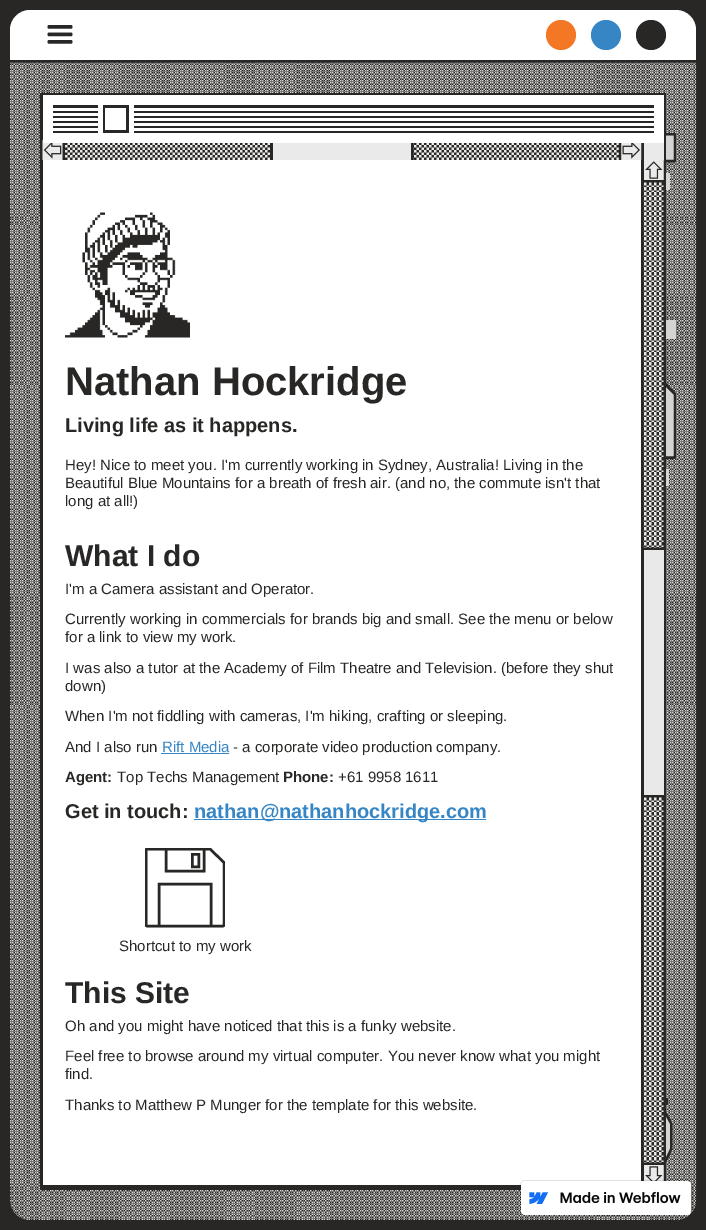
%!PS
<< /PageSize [706 1230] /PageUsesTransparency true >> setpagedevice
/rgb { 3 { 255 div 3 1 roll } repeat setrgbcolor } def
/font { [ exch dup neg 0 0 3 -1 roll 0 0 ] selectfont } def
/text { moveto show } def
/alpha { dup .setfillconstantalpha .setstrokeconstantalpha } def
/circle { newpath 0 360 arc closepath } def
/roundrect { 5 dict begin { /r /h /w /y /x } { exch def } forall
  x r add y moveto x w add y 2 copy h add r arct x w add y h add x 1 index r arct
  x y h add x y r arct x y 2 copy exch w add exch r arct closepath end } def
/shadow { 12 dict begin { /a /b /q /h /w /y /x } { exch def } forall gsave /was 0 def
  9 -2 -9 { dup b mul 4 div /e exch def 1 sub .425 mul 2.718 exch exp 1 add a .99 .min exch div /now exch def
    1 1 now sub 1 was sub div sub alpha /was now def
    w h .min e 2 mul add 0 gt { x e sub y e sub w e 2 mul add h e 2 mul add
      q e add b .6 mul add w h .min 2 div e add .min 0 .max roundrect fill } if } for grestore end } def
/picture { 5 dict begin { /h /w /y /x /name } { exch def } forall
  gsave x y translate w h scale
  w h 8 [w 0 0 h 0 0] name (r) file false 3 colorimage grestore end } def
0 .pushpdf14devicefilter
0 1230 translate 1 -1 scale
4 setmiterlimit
40 39 37 rgb
0 0 706 1230 rectfill
255 255 255 rgb
30 10 moveto 5 0 rlineto 0 50 rlineto -25 0 rlineto 0 -30 rlineto 0 -11 9 -20 20 -20 rcurveto closepath fill
35 10 50 50 rectfill
(img_01.rgb) 47 25 26 19 picture
85 10 moveto 591 0 rlineto 11 0 20 9 20 20 rcurveto 0 30 rlineto -611 0 rlineto closepath fill
243 119 37 rgb
561 35 15 circle fill
54 133 197 rgb
606 35 15 circle fill
40 39 37 rgb
651 35 15 circle fill
(img_02.rgb) 10 62 687 1158 picture
255 255 255 rgb
598 135 moveto 0 25 rlineto 0 1 rlineto 76 0 rlineto 1 -1 rlineto 0 -25 rlineto -1 -1 rlineto -76 0 rlineto closepath eofill
gsave
596 133 80 30 rectclip
40 39 37 rgb
2.5 setlinewidth
597.5 134.5 moveto 0 26 rlineto 1 0.5 rlineto 76 0 rlineto 0.5 -0.5 rlineto 0 -25.5 rlineto -1 -1 rlineto -75.5 0 rlineto closepath stroke
grestore
666 173 4 17 rectfill
666 320 10 19 rectfill
598 381 moveto 0 76 rlineto 0 1 rlineto 76 0 rlineto 1 -1 rlineto 0 -63 rlineto -14 -14 rlineto -63 0 rlineto closepath eofill
gsave
596 379 80 80 rectclip
40 39 37 rgb
2.5 setlinewidth
597.5 381 moveto 0 75.5 rlineto 1 1 rlineto 76 0 rlineto 0.5 -1 rlineto 0 -62.5 rlineto -14 -14 rlineto -62.5 0 rlineto closepath stroke
grestore
666 469 3 17 rectfill
(img_11.rgb) 666 1098 7 65 picture
0.2 alpha
40 39 37 rgb
10 63 moveto 686 0 rlineto 0 1137 rlineto 0 11 -9 20 -20 20 rcurveto -646 0 rlineto -11 0 -20 -9 -20 -20 rcurveto closepath fill
1 alpha
40 93 626 1097 rectfill
255 255 255 rgb
43 95 621 10 rectfill
654 105 10 28 rectfill
43 105 10 28 rectfill
98 105 5 28 rectfill
53 108 45 3 rectfill
53 113 45 3 rectfill
53 118 45 3 rectfill
53 123 45 3 rectfill
53 128 45 3 rectfill
129 105 5 28 rectfill
105 108 21 22 rectfill
134 108 520 3 rectfill
134 113 520 3 rectfill
134 118 520 3 rectfill
134 123 520 3 rectfill
134 128 520 3 rectfill
43 133 621 10 rectfill
(img_03.rgb) 42 140 21 20 picture
(img_04.rgb) 65 143 205 17 picture
0.9 alpha
273 143 138 17 rectfill
1 alpha
(img_05.rgb) 413 143 206 17 picture
(img_06.rgb) 621 143 21 17 picture
0.9 alpha
644 143 20 17 rectfill
1 alpha
43 160 598 1025 rectfill
(img_07.rgb) 65 212 125 126 picture
54 133 197 rgb
161 753 68 1 rectfill
194 819 292 1 rectfill
gsave
145 848 80 80 rectclip
40 39 37 rgb
2.5 setlinewidth
146 849.5 moveto 0 76 rlineto 1 0.5 rlineto 76 0 rlineto 1 -0.5 rlineto 0 -63 rlineto -14 -13.5 rlineto -63 0 rlineto closepath stroke
grestore
40 39 37 rgb
2.5 setlinewidth
166 850 moveto 0 21 rlineto 38 0 rlineto 0 -21 rlineto stroke
159 926 moveto 0 -42 rlineto 52 0 rlineto 0 42 rlineto stroke
192.25 854.25 6.5 12.5 rectstroke
(img_08.rgb) 644 160 20 20 picture
(img_09.rgb) 643 182 21 366 picture
234 233 233 rgb
644 550 20 245 rectfill
(img_09.rgb) 643 797 21 366 picture
(img_10.rgb) 644 1165 20 16 picture
0 0 0 rgb
521 1183 170 33 4 2 0.1 shadow
0.1 alpha
1 setlinewidth
520.5 1180.5 172 35 4.5 roundrect stroke
1 alpha
255 255 255 rgb
521 1181 170 34 4 roundrect fill
(img_12.rgb) 529 1192 19 12 picture
(img_13.rgb) 560 1191 121 13 picture
/LiberationSans-Bold 40 font
40 39 37 rgb
(Nathan Hockridge) 65 395 text
/LiberationSans-Bold 20 font
(Living life as it happens.) 65 432 text
/LiberationSans-Regular 15 font
(Hey! Nice to meet you. I'm currently working in Sydney, Australia! Living in the) 65 470 text
(Beautiful Blue Mountains for a breath of fresh air. \(and no, the commute isn't that) 65 488 text
(long at all!\)) 65 506 text
/LiberationSans-Bold 30 font
(What I do) 65 566 text
/LiberationSans-Regular 15 font
(I'm a Camera assistant and Operator.) 65 594 text
(Currently working in commercials for brands big and small. See the menu or below) 65 624 text
(for a link to view my work.) 65 642 text
(I was also a tutor at the Academy of Film Theatre and Television. \(before they shut) 65 673 text
(down\)) 65 691 text
(When I'm not fiddling with cameras, I'm hiking, crafting or sleeping.) 65 721 text
(And I also run) 65 752 text
54 133 197 rgb
(Rift Media) 162 752 text
40 39 37 rgb
(- a corporate video production company.) 233 752 text
/LiberationSans-Bold 15 font
(Agent:) 65 782 text
/LiberationSans-Regular 15 font
(Top Techs Management) 117 782 text
/LiberationSans-Bold 15 font
(Phone:) 283 782 text
/LiberationSans-Regular 15 font
(+61 9958 1611) 338 782 text
/LiberationSans-Bold 20 font
(Get in touch:) 65 818 text
54 133 197 rgb
(nathan@nathanhockridge.com) 194 818 text
/LiberationSans-Regular 15 font
40 39 37 rgb
(Shortcut to my work) 119 951 text
/LiberationSans-Bold 30 font
(This Site) 65 1003 text
/LiberationSans-Regular 15 font
(Oh and you might have noticed that this is a funky website.) 65 1031 text
(Feel free to browse around my virtual computer. You never know what you might) 65 1061 text
(find.) 65 1079 text
(Thanks to Matthew P Munger for the template for this website.) 65 1110 text
.poppdf14devicefilter showpage
